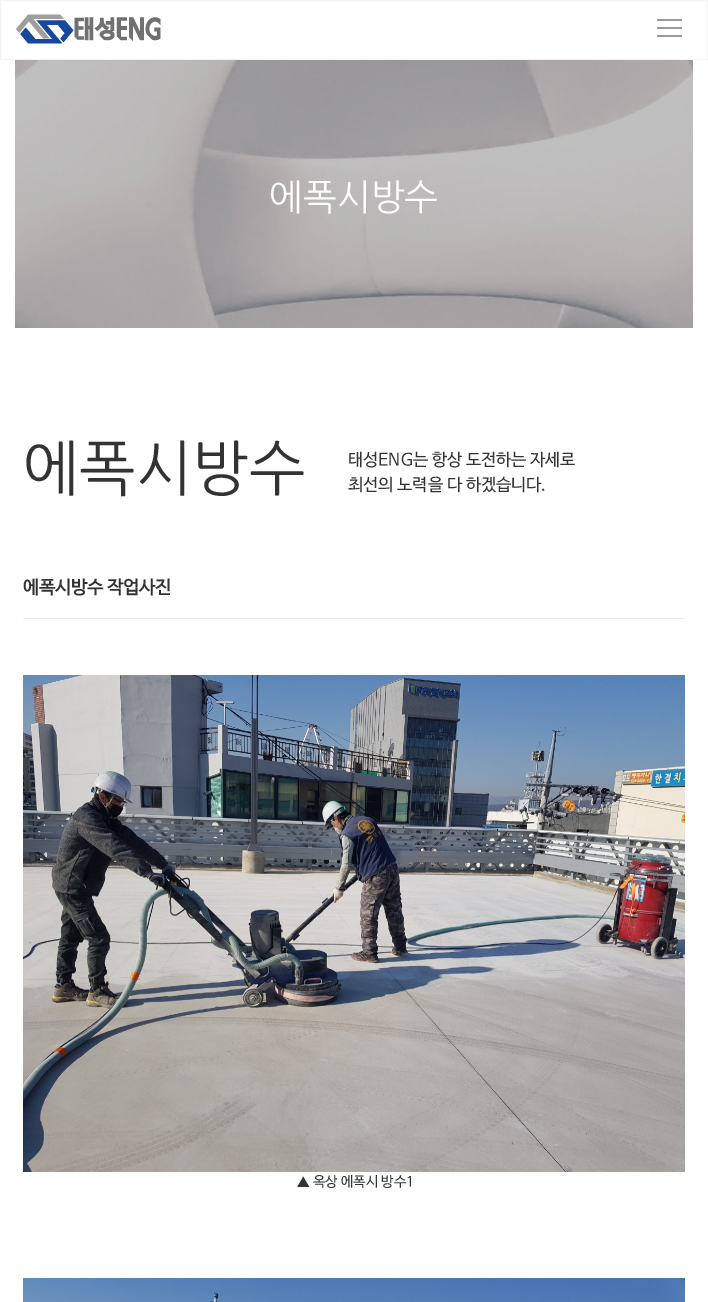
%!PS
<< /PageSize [708 1302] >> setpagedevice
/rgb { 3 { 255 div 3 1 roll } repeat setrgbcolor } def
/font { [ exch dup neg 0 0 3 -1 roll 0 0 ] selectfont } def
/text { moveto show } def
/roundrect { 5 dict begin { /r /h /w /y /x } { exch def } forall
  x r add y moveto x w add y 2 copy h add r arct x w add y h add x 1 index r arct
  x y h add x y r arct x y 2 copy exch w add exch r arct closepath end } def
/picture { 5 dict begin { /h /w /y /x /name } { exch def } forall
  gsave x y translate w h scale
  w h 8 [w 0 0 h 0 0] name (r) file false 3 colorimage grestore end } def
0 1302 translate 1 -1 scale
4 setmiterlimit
255 255 255 rgb
0 0 708 1302 rectfill
244 244 244 rgb
0.5 0.5 707 59 rectstroke
(img_01.rgb) 16 14 145 30 picture
153 153 153 rgb
657 19 25 2 1 roundrect fill
657 27 25 2 1 roundrect fill
657 35 25 2 1 roundrect fill
(img_02.rgb) 15 60 678 268 picture
238 238 238 rgb
23 618 662 1 rectfill
(img_03.rgb) 23 675 662 497 picture
(img_04.rgb) 23 1277 662 25 picture
/NanumGothic-Regular 36 font
255 255 255 rgb
(에폭시방수) 269 210 text
/NanumGothic-Regular 60 font
51 51 51 rgb
(에폭시방수) 23 490 text
/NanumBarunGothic-Regular 17 font
(태성ENG는 항상 도전하는 자세로) 348 465 text
(최선의 노력을 다 하겠습니다.) 348 490 text
/NanumBarunGothic-Bold 18 font
(에폭시방수 작업사진) 23 593 text
/NanumBarunGothic-Regular 14 font
(▲ 옥상 에폭시 방수1) 297 1186 text
showpage
